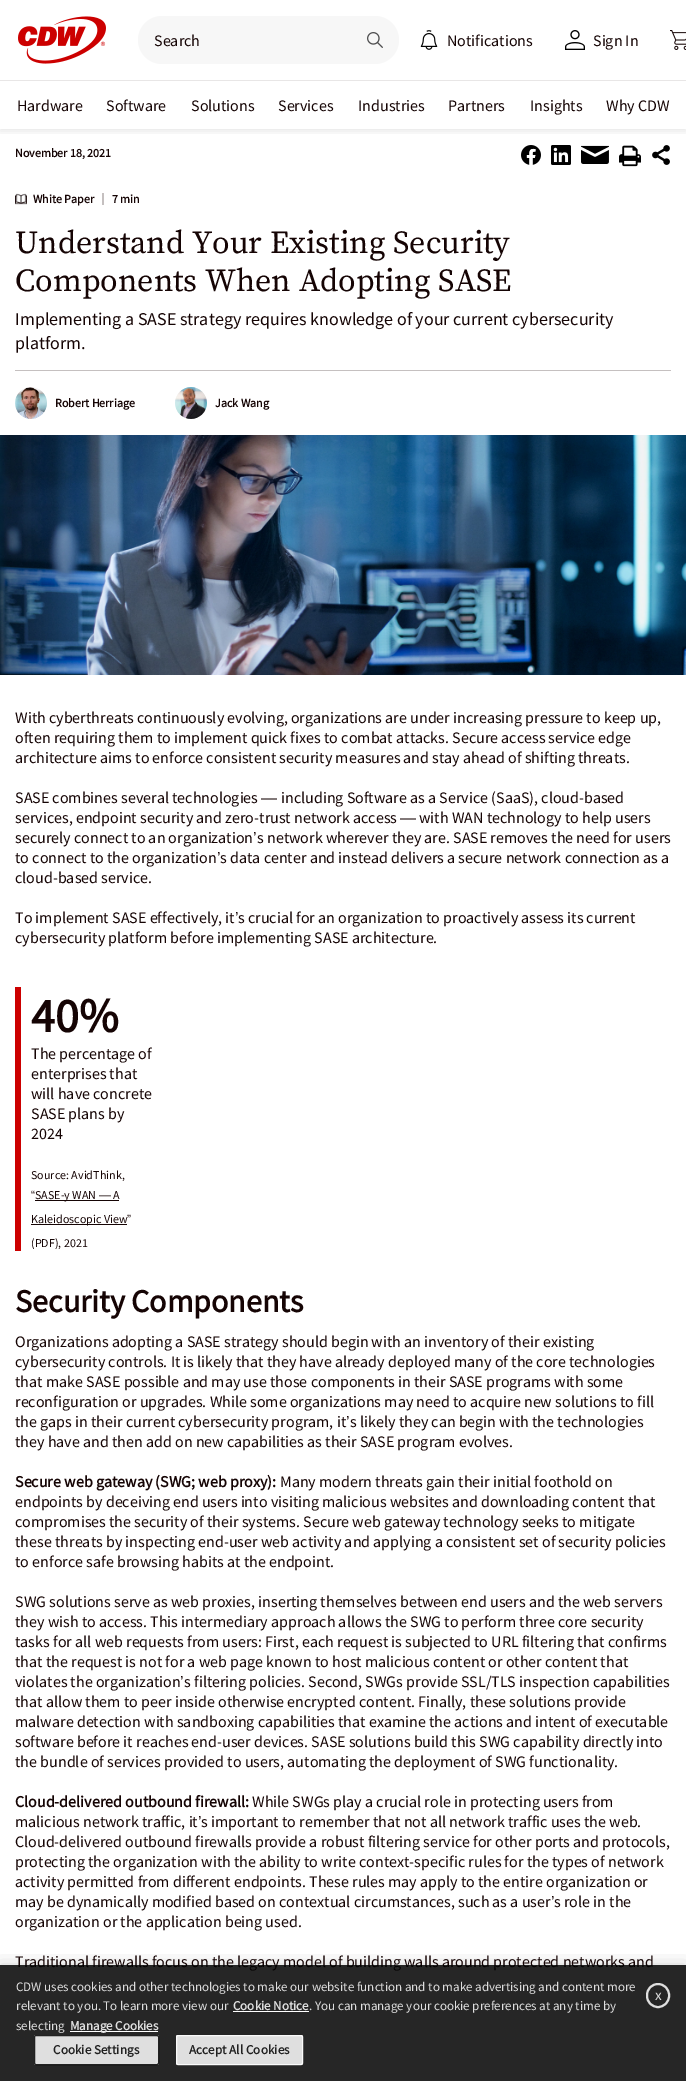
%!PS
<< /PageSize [686 2081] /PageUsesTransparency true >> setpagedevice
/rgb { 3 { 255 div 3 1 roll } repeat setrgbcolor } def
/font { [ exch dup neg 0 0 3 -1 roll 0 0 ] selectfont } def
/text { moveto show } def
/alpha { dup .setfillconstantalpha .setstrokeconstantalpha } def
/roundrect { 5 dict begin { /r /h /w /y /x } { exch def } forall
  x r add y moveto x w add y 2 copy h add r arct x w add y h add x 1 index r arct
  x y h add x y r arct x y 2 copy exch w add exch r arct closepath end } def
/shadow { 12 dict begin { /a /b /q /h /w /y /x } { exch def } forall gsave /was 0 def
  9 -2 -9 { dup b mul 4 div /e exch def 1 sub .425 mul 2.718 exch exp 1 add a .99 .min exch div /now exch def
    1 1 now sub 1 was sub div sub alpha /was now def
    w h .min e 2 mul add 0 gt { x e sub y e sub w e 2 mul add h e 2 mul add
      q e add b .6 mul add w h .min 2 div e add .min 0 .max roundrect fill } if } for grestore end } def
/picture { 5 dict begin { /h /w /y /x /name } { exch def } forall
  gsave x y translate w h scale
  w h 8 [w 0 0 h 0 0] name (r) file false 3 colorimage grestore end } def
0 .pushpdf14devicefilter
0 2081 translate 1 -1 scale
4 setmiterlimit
255 255 255 rgb
0 0 686 2081 rectfill
gsave
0 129 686 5 rectclip
0 0 0 rgb
0 2 686 129 0 4 0.1 shadow
grestore
(img_01.rgb) 18 16 88 48 picture
247 247 247 rgb
138 16 261 48 24 roundrect fill
(img_02.rgb) 367 32 16 16 picture
(img_03.rgb) 420 30 18 20 picture
(img_04.rgb) 565 30 20 20 picture
(img_05.rgb) 670 30 16 20 picture
232 230 230 rgb
0 80 686 1 rectfill
(img_06.rgb) 521 145 20 20 picture
(img_07.rgb) 551 145 20 20 picture
(img_08.rgb) 581 145 28 19 picture
(img_09.rgb) 619 145 22 22 picture
(img_10.rgb) 652 145 18 20 picture
197 192 192 rgb
15 370 656 1 rectfill
(img_11.rgb) 15 193 12 12 picture
102 193 2 12 rectfill
(img_12.rgb) 15 387 32 32 picture
(img_13.rgb) 175 387 32 32 picture
(img_14.rgb) 0 435 686 240 picture
204 0 0 rgb
15 987 6 264 rectfill
21 4 4 rgb
35 1200 84 1 rectfill
31 1224 96 1 rectfill
gsave
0 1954 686 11 rectclip
0 0 0 rgb
0 1965 686 116 0 9 0.17 shadow
grestore
/SourceSansPro-Regular 16 font
(Search) 154 46 text
(Notifications) 447 46 text
(Sign In) 593 46 text
(Hardware) 17 111 text
(Software) 106 111 text
(Solutions) 191 111 text
(Services) 278 111 text
(Industries) 358 111 text
(Partners) 448 111 text
(Insights) 530 111 text
(Why CDW) 606 111 text
/SourceSansPro-Bold 12 font
(November 18, 2021) 15 157 text
(White Paper) 33 203 text
(7 min) 112 203 text
/SourceSerifPro-Regular 32 font
15 253 moveto 0.5 0 32 (Understand Your Existing Security) widthshow
15 291 moveto 0.5 0 32 (Components When Adopting SASE) widthshow
/SourceSansPro-Regular 18 font
(Implementing a SASE strategy requires knowledge of your current cybersecurity) 15 325 text
(platform.) 15 349 text
/SourceSansPro-Bold 12 font
(Robert Herriage) 55 407 text
(Jack Wang) 215 407 text
/SourceSansPro-Regular 16 font
(With cyberthreats continuously evolving, organizations are under increasing pressure to keep up,) 15 723 text
(often requiring them to implement quick fixes to combat attacks. Secure access service edge) 15 743 text
(architecture aims to enforce consistent security measures and stay ahead of shifting threats.) 15 763 text
(SASE combines several technologies) 15 803 text
/LiberationSans-Regular 16 font
(—) 261 803 text
/SourceSansPro-Regular 16 font
(including Software as a Service \(SaaS\), cloud-based) 281 803 text
(services, endpoint security and zero-trust network access) 15 823 text
/LiberationSans-Regular 16 font
(—) 400 823 text
/SourceSansPro-Regular 16 font
(with WAN technology to help users) 419 823 text
(securely connect to an organization) 15 843 text
/LiberationSans-Regular 16 font
(’) 253 843 text
/SourceSansPro-Regular 16 font
(s network wherever they are. SASE removes the need for users) 257 843 text
(to connect to the organization) 15 863 text
/LiberationSans-Regular 16 font
(’) 217 863 text
/SourceSansPro-Regular 16 font
(s data center and instead delivers a secure network connection as a) 220 863 text
(cloud-based service.) 15 883 text
(To implement SASE effectively, it) 15 923 text
/LiberationSans-Regular 16 font
(’) 235 923 text
/SourceSansPro-Regular 16 font
(s crucial for an organization to proactively assess its current) 238 923 text
(cybersecurity platform before implementing SASE architecture.) 15 943 text
/SourceSansPro-Bold 48 font
(40%) 31 1032 text
/SourceSansPro-Regular 16 font
(The percentage of) 31 1059 text
(enterprises that) 31 1079 text
(will have concrete) 31 1099 text
(SASE plans by) 31 1119 text
(2024) 31 1139 text
/SourceSansPro-Regular 12 font
(Source: AvidThink,) 31 1179 text
/LiberationSans-Regular 12 font
(“) 31 1199 text
/SourceSansPro-Regular 12 font
(SASE-y WAN) 35 1199 text
/LiberationSans-Regular 12 font
(—) 99 1199 text
/SourceSansPro-Regular 12 font
(A) 113 1199 text
(Kaleidoscopic View) 31 1223 text
/LiberationSans-Regular 12 font
(”) 127 1223 text
/SourceSansPro-Regular 12 font
(\(PDF\), 2021) 31 1247 text
/SourceSansPro-Bold 32 font
(Security Components) 15 1312 text
/SourceSansPro-Regular 16 font
(Organizations adopting a SASE strategy should begin with an inventory of their existing) 15 1347 text
(cybersecurity controls. It is likely that they have already deployed many of the core technologies) 15 1367 text
(that make SASE possible and may use those components in their SASE programs with some) 15 1387 text
(reconfiguration or upgrades. While some organizations may need to acquire new solutions to fill) 15 1407 text
(the gaps in their current cybersecurity program, it) 15 1427 text
/LiberationSans-Regular 16 font
(’) 346 1427 text
/SourceSansPro-Regular 16 font
(s likely they can begin with the technologies) 350 1427 text
(they have and then add on new capabilities as their SASE program evolves.) 15 1447 text
/SourceSansPro-Bold 16 font
(Secure web gateway \(SWG; web proxy\):) 15 1487 text
/SourceSansPro-Regular 16 font
(Many modern threats gain their initial foothold on) 280 1487 text
(endpoints by deceiving end users into visiting malicious websites and downloading content that) 15 1507 text
(compromises the security of their systems. Secure web gateway technology seeks to mitigate) 15 1527 text
(these threats by inspecting end-user web activity and applying a consistent set of security policies) 15 1547 text
(to enforce safe browsing habits at the endpoint.) 15 1567 text
(SWG solutions serve as web proxies, inserting themselves between end users and the web servers) 15 1607 text
(they wish to access. This intermediary approach allows the SWG to perform three core security) 15 1627 text
(tasks for all web requests from users: First, each request is subjected to URL filtering that confirms) 15 1647 text
(that the request is not for a web page known to host malicious content or other content that) 15 1667 text
(violates the organization) 15 1687 text
/LiberationSans-Regular 16 font
(’) 180 1687 text
/SourceSansPro-Regular 16 font
(s filtering policies. Second, SWGs provide SSL/TLS inspection capabilities) 184 1687 text
(that allow them to peer inside otherwise encrypted content. Finally, these solutions provide) 15 1707 text
(malware detection with sandboxing capabilities that examine the actions and intent of executable) 15 1727 text
(software before it reaches end-user devices. SASE solutions build this SWG capability directly into) 15 1747 text
(the bundle of services provided to users, automating the deployment of SWG functionality.) 15 1767 text
/SourceSansPro-Bold 16 font
(Cloud-delivered outbound firewall:) 15 1807 text
/SourceSansPro-Regular 16 font
(While SWGs play a crucial role in protecting users from) 252 1807 text
(malicious network traffic, it) 15 1827 text
/LiberationSans-Regular 16 font
(’) 198 1827 text
/SourceSansPro-Regular 16 font
(s important to remember that not all network traffic uses the web.) 201 1827 text
(Cloud-delivered outbound firewalls provide a robust filtering service for other ports and protocols,) 15 1847 text
(protecting the organization with the ability to write context-specific rules for the types of network) 15 1867 text
(activity permitted from different endpoints. These rules may apply to the entire organization or) 15 1887 text
(may be dynamically modified based on contextual circumstances, such as a user) 15 1907 text
/LiberationSans-Regular 16 font
(’) 551 1907 text
/SourceSansPro-Regular 16 font
(s role in the) 554 1907 text
(organization or the application being used.) 15 1927 text
(Traditional firewalls focus on the legacy model of building walls around protected networks and) 15 1967 text
0.85 alpha
0 0 0 rgb
0 1965 686 116 rectfill
/SourceSansPro-Regular 13 font
1 alpha
222 222 222 rgb
(CDW uses cookies and other technologies to make our website function and to make advertising and content more) 16 1991 text
(relevant to you. To learn more view our) 16 2010 text
/SourceSansPro-Bold 13 font
(Cookie Notice) 233 2010 text
255 255 255 rgb
233 2011 76 1 rectfill
/SourceSansPro-Regular 13 font
222 222 222 rgb
(. You can manage your cookie preferences at any time by) 309 2010 text
(selecting) 16 2030 text
255 255 255 rgb
70 2031 88 1 rectfill
/SourceSansPro-Bold 13 font
222 222 222 rgb
(Manage Cookies) 70 2030 text
0.85 alpha
255 255 255 rgb
34 2035 125 30 2 roundrect fill
0 0 0 rgb
34.5 2035.5 124 29 1.5 roundrect stroke
1 alpha
33 33 33 rgb
53 2054 moveto 0.1 0 (Cookie Settings) ashow
0.85 alpha
255 255 255 rgb
176 2035 127 30 2 roundrect fill
176.5 2035.5 126 29 1.5 roundrect stroke
1 alpha
33 33 33 rgb
189 2054 moveto 0.1 0 (Accept All Cookies) ashow
0.85 alpha
255 255 255 rgb
2 setlinewidth
647 1984 22 23 11 roundrect stroke
/SourceSansPro-Regular 15 font
1 alpha
222 222 222 rgb
(x) 655 2000 text
.poppdf14devicefilter showpage
